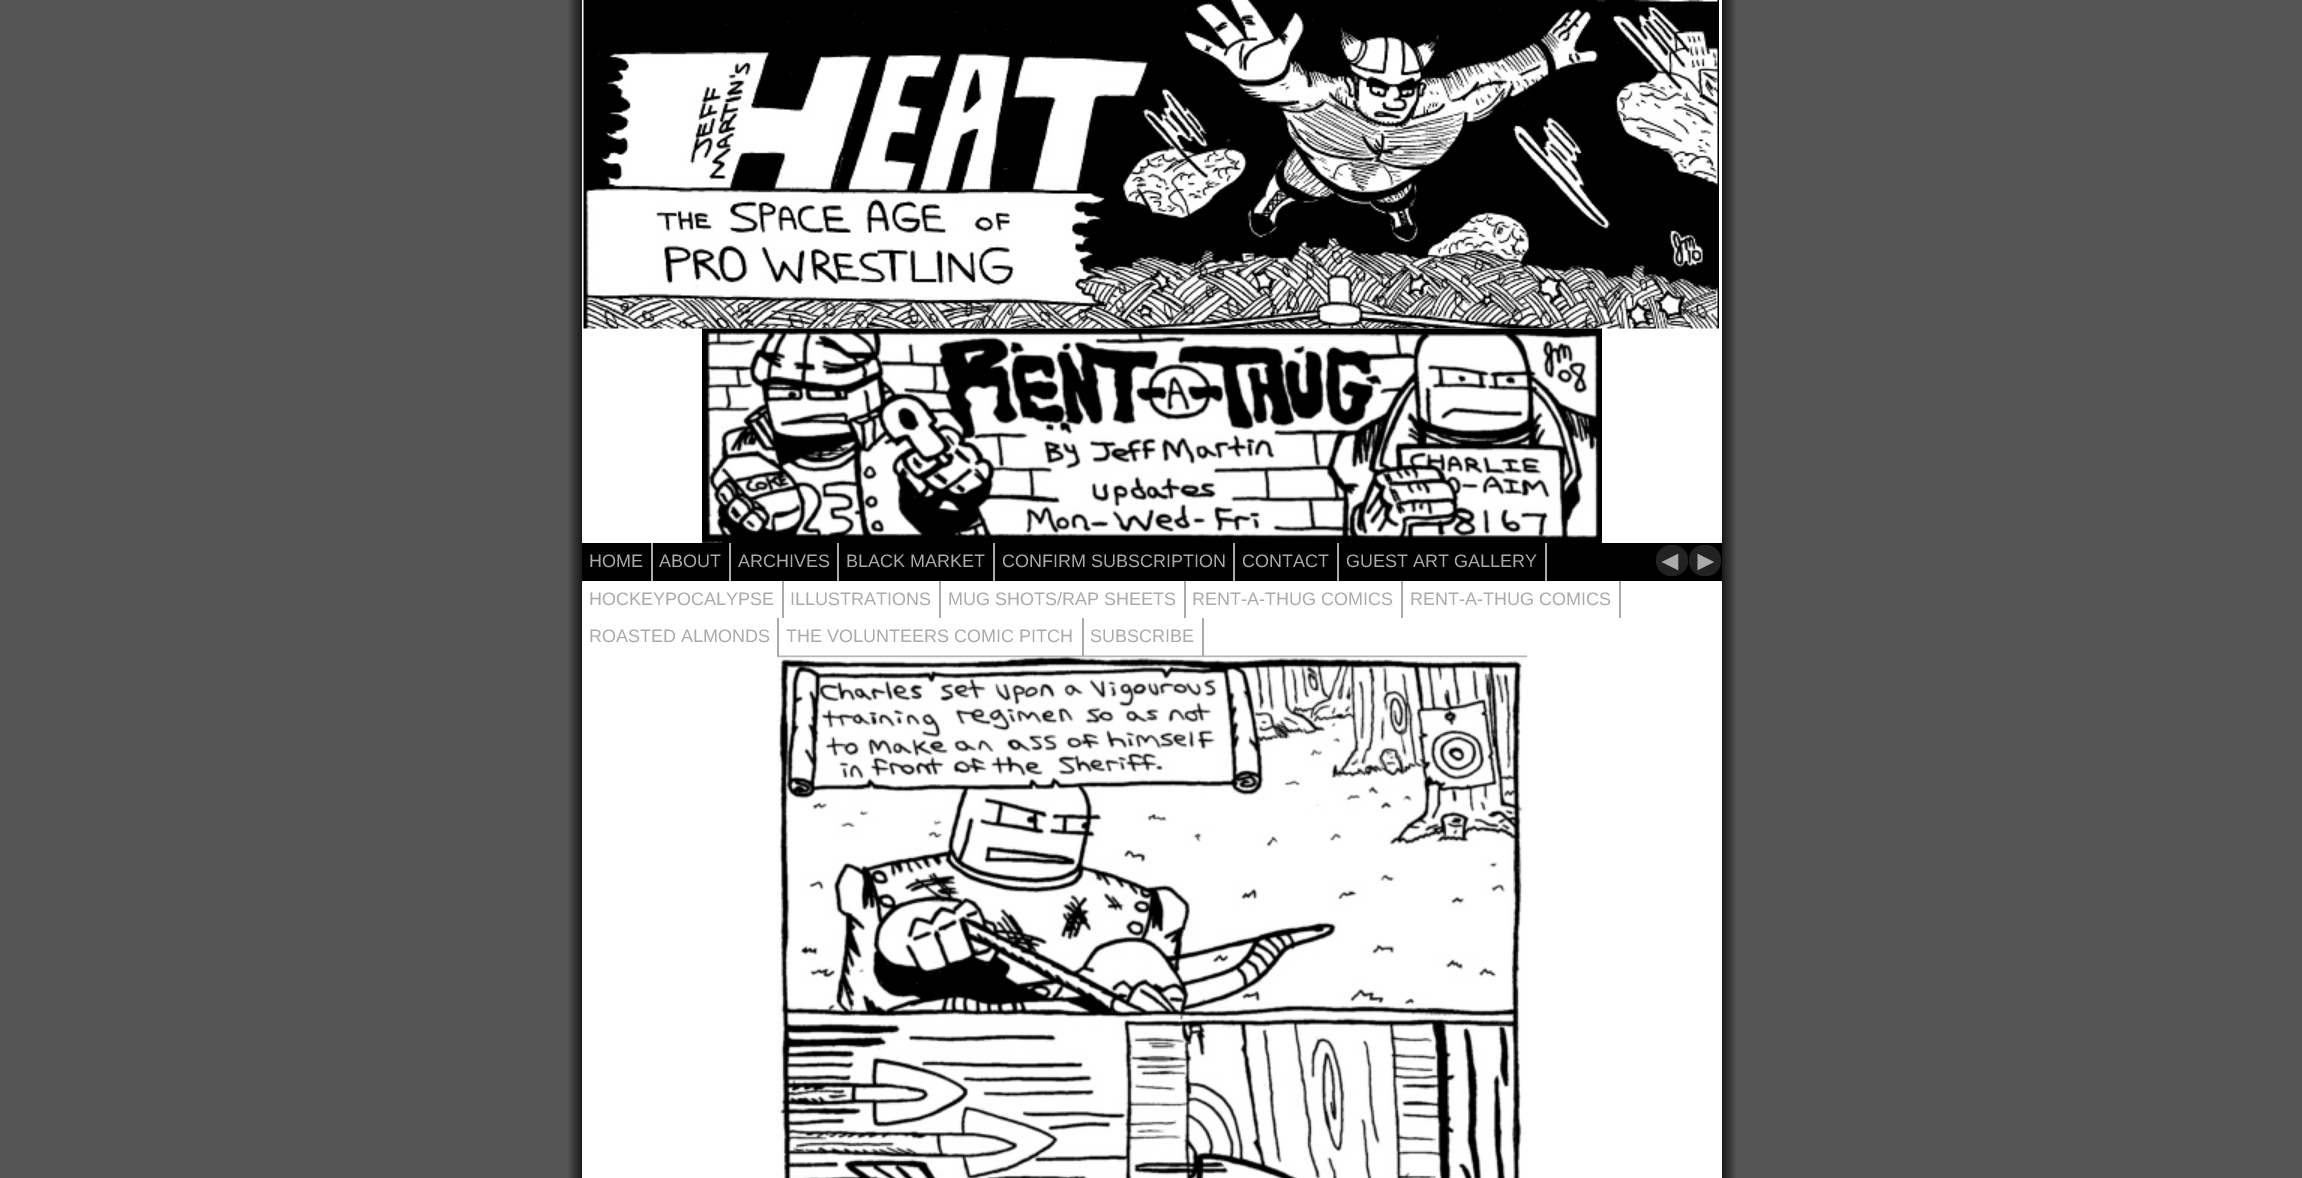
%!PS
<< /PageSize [2302 1178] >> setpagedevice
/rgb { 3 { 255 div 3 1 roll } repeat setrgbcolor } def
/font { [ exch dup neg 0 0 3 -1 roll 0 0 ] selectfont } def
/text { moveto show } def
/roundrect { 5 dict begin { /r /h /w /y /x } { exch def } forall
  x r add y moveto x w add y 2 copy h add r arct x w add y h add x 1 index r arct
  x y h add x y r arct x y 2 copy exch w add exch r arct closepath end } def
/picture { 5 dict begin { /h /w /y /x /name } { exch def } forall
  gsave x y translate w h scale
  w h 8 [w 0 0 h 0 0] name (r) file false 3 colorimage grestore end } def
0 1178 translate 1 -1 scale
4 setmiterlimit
85 85 85 rgb
0 0 2302 1178 rectfill
(img_01.rgb) 568 0 1168 1178 picture
255 255 255 rgb
582 0 1140 543 rectfill
(img_02.rgb) 583 0 1136 329 picture
(img_03.rgb) 702 328 900 215 picture
0 0 0 rgb
582 543 1140 38 rectfill
170 170 170 rgb
651 543 2 38 rectfill
729 543 2 38 rectfill
837 543 2 38 rectfill
993 543 2 38 rectfill
1233 543 2 38 rectfill
1337 543 2 38 rectfill
1545 543 2 38 rectfill
255 255 255 rgb
582 581 1140 597 rectfill
170 170 170 rgb
782 581 2 37 rectfill
939 581 2 37 rectfill
1184 581 2 37 rectfill
1401 581 2 37 rectfill
1619 581 2 37 rectfill
777 618 2 38 rectfill
1082 618 2 38 rectfill
1202 618 2 38 rectfill
34 34 34 rgb
1656 545 32 31 15 roundrect fill
1689 545 32 31 15 roundrect fill
(img_04.rgb) 777 655 750 523 picture
/LiberationSans-Regular 18 font
170 170 170 rgb
(HOME) 589 567 text
(ABOUT) 659 567 text
(ARCHIVES) 738 567 text
(BLACK MARKET) 846 567 text
(CONFIRM SUBSCRIPTION) 1002 567 text
(CONTACT) 1242 567 text
(GUEST ART GALLERY) 1346 567 text
(HOCKEYPOCALYPSE) 589 605 text
(ILLUSTRATIONS) 790 605 text
(MUG SHOTS/RAP SHEETS) 948 605 text
(RENT-A-THUG COMICS) 1192 605 text
(RENT-A-THUG COMICS) 1410 605 text
(ROASTED ALMONDS) 589 642 text
(THE VOLUNTEERS COMIC PITCH) 786 642 text
(SUBSCRIBE) 1090 642 text
/LiberationSans-Regular 28 font
(◄) 1656 570 text
(►) 1692 570 text
showpage
